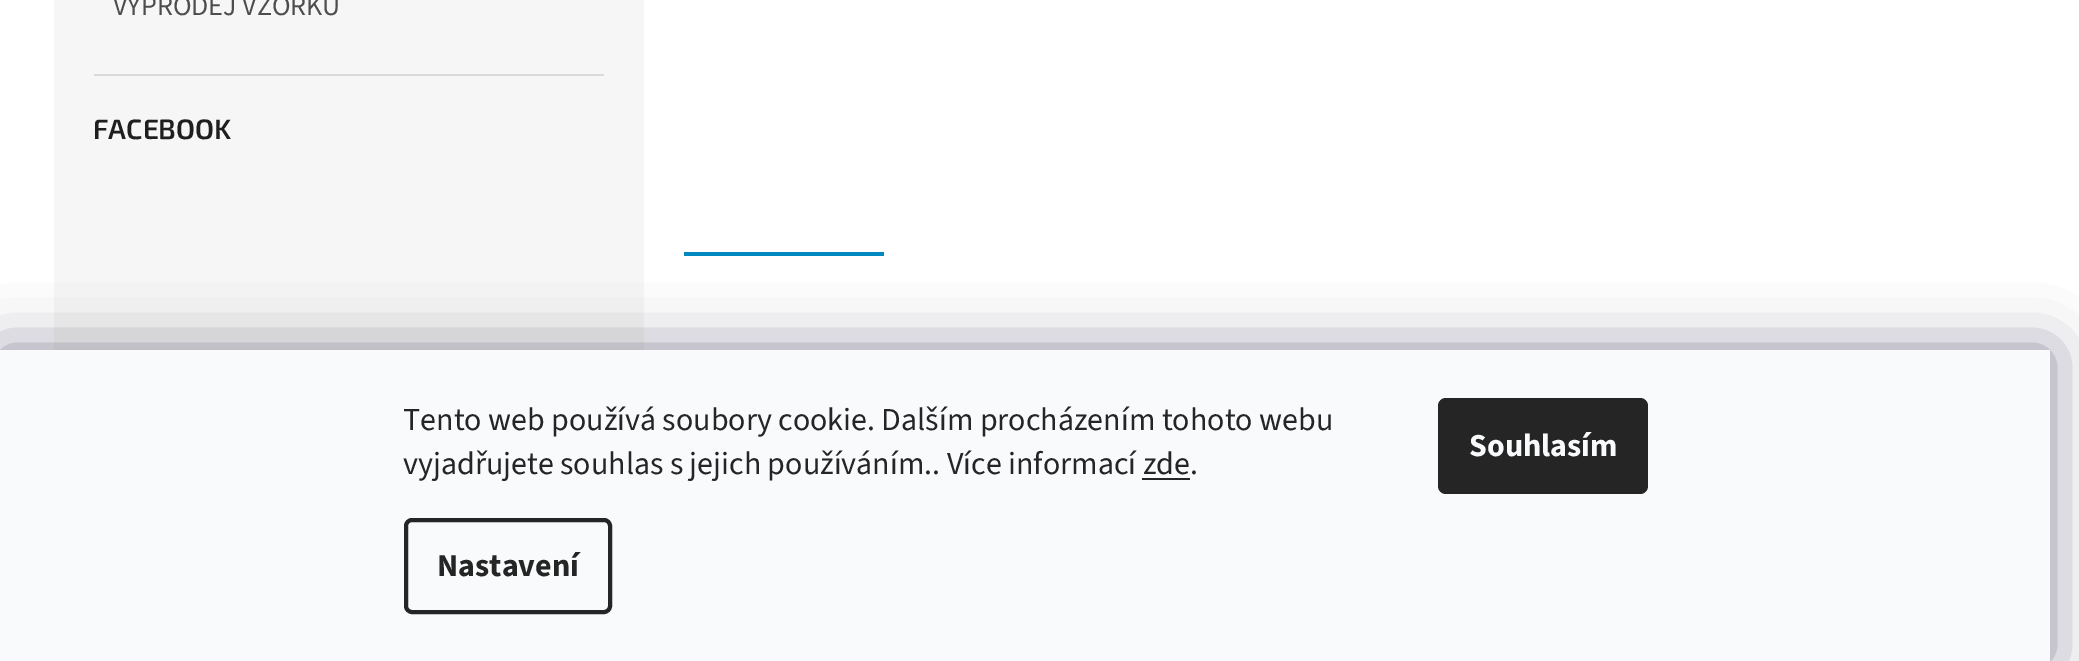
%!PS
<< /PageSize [2079 661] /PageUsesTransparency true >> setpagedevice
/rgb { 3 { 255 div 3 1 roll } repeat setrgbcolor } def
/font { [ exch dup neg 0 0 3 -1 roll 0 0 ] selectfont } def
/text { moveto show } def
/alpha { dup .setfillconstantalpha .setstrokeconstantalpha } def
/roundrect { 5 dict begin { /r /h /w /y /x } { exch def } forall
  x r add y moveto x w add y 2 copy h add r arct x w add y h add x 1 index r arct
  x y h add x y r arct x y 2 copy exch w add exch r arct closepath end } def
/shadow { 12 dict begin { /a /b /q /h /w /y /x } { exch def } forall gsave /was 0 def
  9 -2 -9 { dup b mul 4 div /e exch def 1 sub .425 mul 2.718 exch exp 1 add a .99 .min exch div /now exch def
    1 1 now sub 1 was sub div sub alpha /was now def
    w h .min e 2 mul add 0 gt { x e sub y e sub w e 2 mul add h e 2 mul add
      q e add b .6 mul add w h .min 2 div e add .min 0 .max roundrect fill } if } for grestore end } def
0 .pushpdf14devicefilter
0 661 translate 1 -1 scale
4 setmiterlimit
255 255 255 rgb
0 0 2079 661 rectfill
246 246 246 rgb
54 0 590 350 rectfill
218 218 218 rgb
94 74 510 2 rectfill
0 136 191 rgb
684 252 200 4 rectfill
27 25 57 rgb
0 350 2050 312 0 30 0.5 shadow
248 250 251 rgb
0 350 2050 311 rectfill
37 37 37 rgb
1142 478 48 2 rectfill
4 setlinewidth
406 520 204 92 6 roundrect stroke
1438 398 210 96 8 roundrect fill
/SourceSans3-Regular 28 font
77 77 77 rgb
(VÝPRODEJ VZORKŮ) 113 15 text
/Exo2-SemiBold 28 font
31 31 31 rgb
(FACEBOOK) 93 139 text
/SourceSans3-Regular 32 font
37 37 37 rgb
(Tento web používá soubory cookie. Dalším procházením tohoto webu) 403 430 text
(vyjadřujete souhlas s jejich používáním.. Více informací zde.) 403 474 text
/SourceSans3-Bold 32 font
(Nastavení) 437 576 text
248 250 251 rgb
(Souhlasím) 1469 456 text
.poppdf14devicefilter showpage
